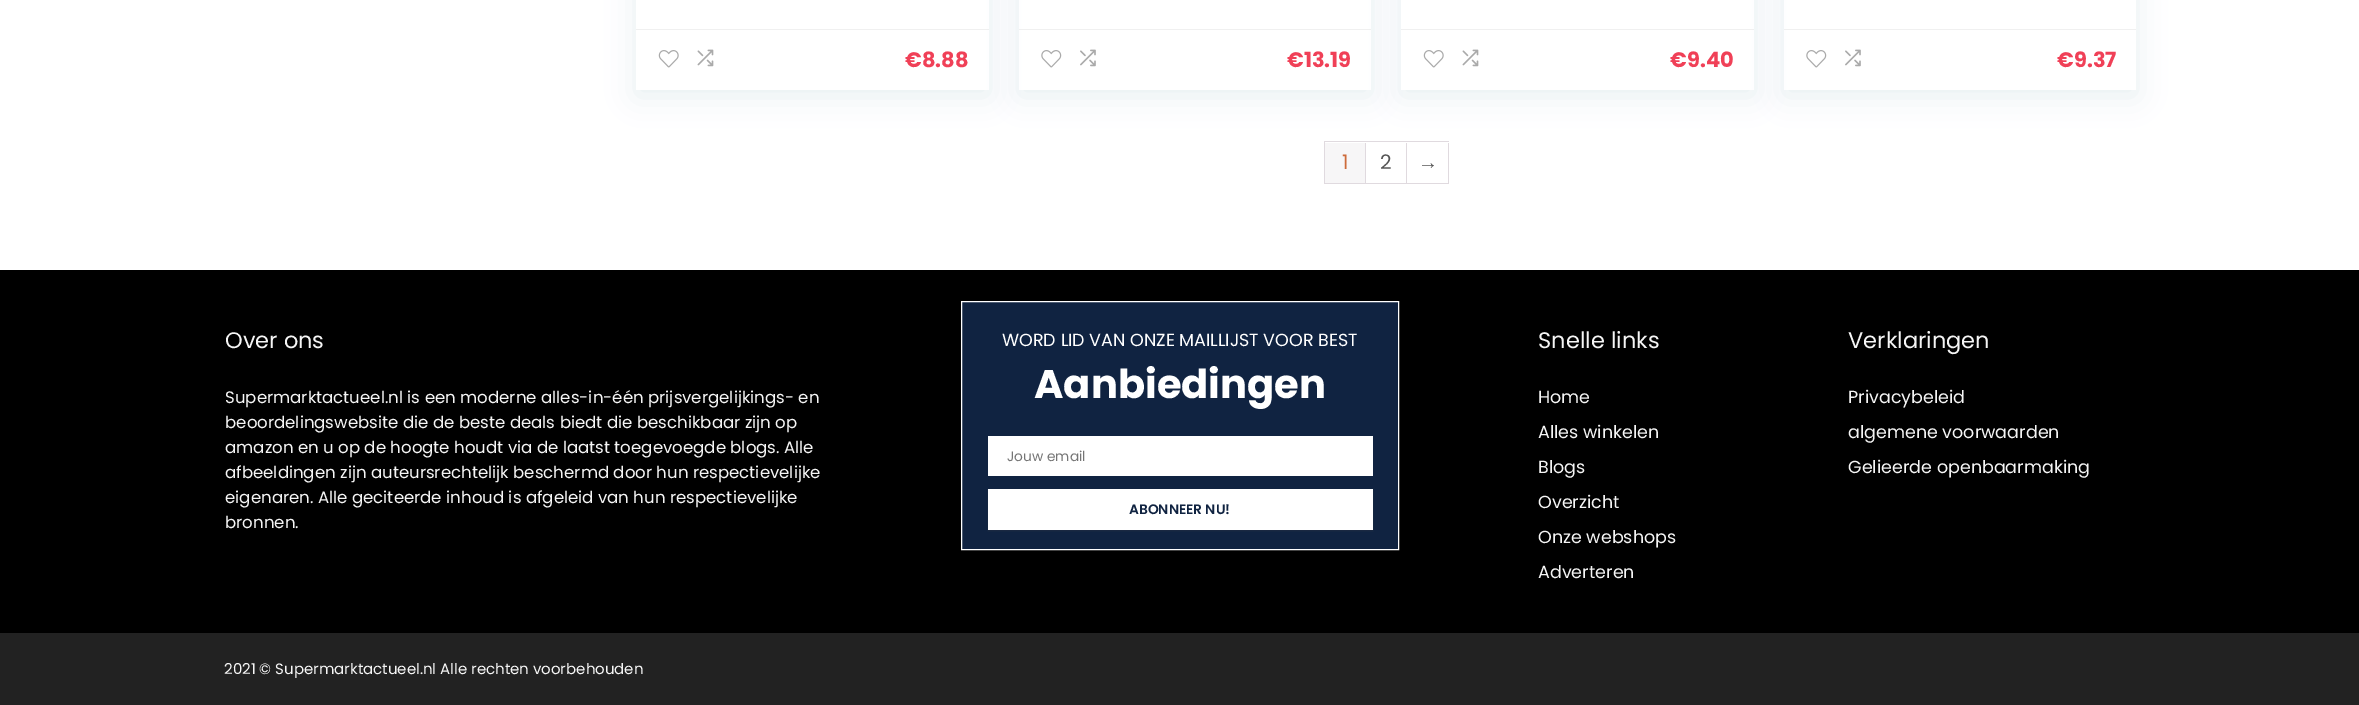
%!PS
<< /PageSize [2359 705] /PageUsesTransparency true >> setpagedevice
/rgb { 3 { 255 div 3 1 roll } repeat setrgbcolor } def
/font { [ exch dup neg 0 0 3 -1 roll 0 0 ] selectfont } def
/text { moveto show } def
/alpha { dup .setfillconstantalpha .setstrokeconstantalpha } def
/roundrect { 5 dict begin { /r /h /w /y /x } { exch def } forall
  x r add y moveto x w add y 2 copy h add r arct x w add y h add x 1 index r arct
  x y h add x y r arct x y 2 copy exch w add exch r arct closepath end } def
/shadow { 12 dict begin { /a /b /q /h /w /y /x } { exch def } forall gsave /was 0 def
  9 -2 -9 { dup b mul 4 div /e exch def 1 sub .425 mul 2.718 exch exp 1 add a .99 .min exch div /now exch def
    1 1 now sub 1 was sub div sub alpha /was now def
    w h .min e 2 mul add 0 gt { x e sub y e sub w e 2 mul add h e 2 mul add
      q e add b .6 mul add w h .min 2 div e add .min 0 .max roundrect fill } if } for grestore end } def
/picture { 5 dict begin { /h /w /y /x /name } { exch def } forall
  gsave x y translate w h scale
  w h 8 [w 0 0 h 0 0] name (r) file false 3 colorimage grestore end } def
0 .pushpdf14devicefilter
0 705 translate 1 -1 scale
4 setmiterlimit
255 255 255 rgb
0 0 2359 705 rectfill
188 207 219 rgb
636 -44 353 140 0 14.5 0.35 shadow
255 255 255 rgb
636 0 353 90 rectfill
240 240 240 rgb
636 29 353 1 rectfill
(img_01.rgb) 658 50 21 18 picture
(img_02.rgb) 697 49 17 18 picture
gsave
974 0 moveto 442 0 rlineto 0 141 rlineto -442 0 rlineto closepath 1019 -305 moveto 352 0 rlineto 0 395 rlineto -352 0 rlineto closepath eoclip newpath
188 207 219 rgb
1019 -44 352 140 0 14.5 0.35 shadow
grestore
1019 29 352 1 rectfill
(img_03.rgb) 1041 50 21 18 picture
(img_04.rgb) 1080 49 16 18 picture
188 207 219 rgb
1401 -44 353 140 0 14.5 0.35 shadow
255 255 255 rgb
1401 0 353 90 rectfill
240 240 240 rgb
1401 29 353 1 rectfill
(img_01.rgb) 1423 50 21 18 picture
(img_02.rgb) 1462 49 17 18 picture
gsave
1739 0 moveto 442 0 rlineto 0 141 rlineto -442 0 rlineto closepath 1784 -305 moveto 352 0 rlineto 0 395 rlineto -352 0 rlineto closepath eoclip newpath
188 207 219 rgb
1784 -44 352 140 0 14.5 0.35 shadow
grestore
1784 29 352 1 rectfill
(img_03.rgb) 1806 50 21 18 picture
(img_04.rgb) 1845 49 16 18 picture
224 218 223 rgb
1324 141 125 1 rectfill
1324 183 125 1 rectfill
1324 141 1 43 rectfill
1365 143 1 40 rectfill
247 246 247 rgb
1325 143 40 40 rectfill
224 218 223 rgb
1406 143 1 40 rectfill
1448 143 1 40 rectfill
0 0 0 rgb
0 270 2359 363 rectfill
16 35 65 rgb
961.5 301.5 moveto 437 0 rlineto 0 248 rlineto -437 0 rlineto closepath gsave fill grestore
255 255 255 rgb
stroke
988 436 385 40 rectfill
60 64 67 rgb
988 490 385 41 0 1 0.3 shadow
255 255 255 rgb
988 489 385 41 rectfill
34 34 34 rgb
0 633 2359 72 rectfill
/Poppins-Bold 21 font
240 64 87 rgb
(€8.88) 905 67 text
(€13.19) 1287 67 text
(€9.40) 1670 67 text
(€9.37) 2057 67 text
/Poppins-Regular 20 font
205 107 59 rgb
(1) 1342 169 text
85 85 85 rgb
(2) 1380 169 text
/LiberationSans-Regular 20 font
(→) 1418 169 text
/Poppins-Regular 22.5 font
245 245 245 rgb
(Over ons) 225 348 text
/Poppins-Regular 16.6 font
(Supermarktactueel.nl is een moderne alles-in-één prijsvergelijkings- en) 225 403 text
(beoordelingswebsite die de beste deals biedt die beschikbaar zijn op) 225 428 text
(amazon en u op de hoogte houdt via de laatst toegevoegde blogs. Alle) 225 453 text
(afbeeldingen zijn auteursrechtelijk beschermd door hun respectievelijke) 225 478 text
(eigenaren. Alle geciteerde inhoud is afgeleid van hun respectievelijke) 225 503 text
(bronnen.) 225 528 text
/Poppins-Regular 17.5 font
255 255 255 rgb
(WORD LID VAN ONZE MAILLIJST VOOR BEST) 1002 346 text
/Poppins-Bold 40 font
(Aanbiedingen) 1034 398 text
/Poppins-Regular 13.75 font
117 117 117 rgb
(Jouw email) 1007 461 text
/Poppins-SemiBold 13.75 font
16 35 65 rgb
(ABONNEER NU!) 1129 514 text
/Poppins-Regular 22.5 font
245 245 245 rgb
(Snelle links) 1538 348 text
/Poppins-Regular 17.5 font
(Home) 1538 403 text
(Alles winkelen) 1538 438 text
(Blogs) 1538 473 text
(Overzicht) 1538 508 text
(Onze webshops) 1538 543 text
(Adverteren) 1538 578 text
/Poppins-Regular 22.5 font
(Verklaringen) 1848 348 text
/Poppins-Regular 17.5 font
(Privacybeleid) 1848 403 text
(algemene voorwaarden) 1848 438 text
(Gelieerde openbaarmaking) 1848 473 text
/Poppins-Regular 15 font
(2021 © Supermarktactueel.nl Alle rechten voorbehouden) 224 674 text
.poppdf14devicefilter showpage
